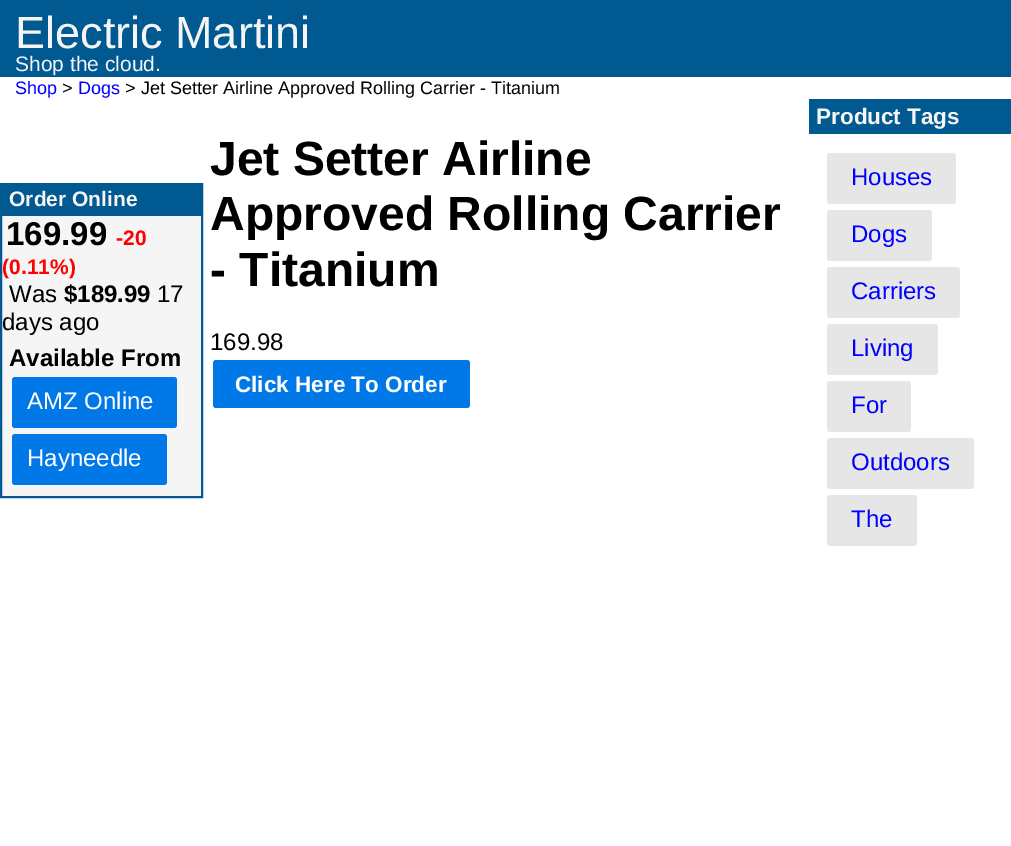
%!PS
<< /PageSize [1011 846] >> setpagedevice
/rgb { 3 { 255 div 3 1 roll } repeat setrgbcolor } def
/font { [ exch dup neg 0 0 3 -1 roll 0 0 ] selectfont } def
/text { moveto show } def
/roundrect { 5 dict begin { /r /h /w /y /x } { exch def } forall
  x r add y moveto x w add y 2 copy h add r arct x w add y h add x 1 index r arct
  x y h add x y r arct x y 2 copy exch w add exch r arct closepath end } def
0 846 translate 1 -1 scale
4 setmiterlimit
255 255 255 rgb
0 0 1011 846 rectfill
0 89 144 rgb
0 0 1011 77 rectfill
245 245 245 rgb
2 216 199 280 rectfill
0 89 144 rgb
2 setlinewidth
1 184 201 313 rectstroke
2 185 199 31 rectfill
0 120 231 rgb
12 377 165 51 3 roundrect fill
12 434 155 51 3 roundrect fill
213 360 257 48 3 roundrect fill
0 89 144 rgb
809 99 202 35 rectfill
230 230 230 rgb
827 153 129 51 3 roundrect fill
827 210 105 51 3 roundrect fill
827 267 133 51 3 roundrect fill
827 324 111 51 3 roundrect fill
827 381 84 51 3 roundrect fill
827 438 147 51 3 roundrect fill
827 495 90 51 3 roundrect fill
/LiberationSans-Regular 45 font
245 245 245 rgb
(Electric Martini) 15 48 text
/LiberationSans-Regular 21 font
(Shop the cloud.) 15 71 text
/LiberationSans-Regular 18 font
0 0 255 rgb
(Shop) 15 94 text
0 0 0 rgb
(>) 62 94 text
0 0 255 rgb
(Dogs) 78 94 text
0 0 0 rgb
(> Jet Setter Airline Approved Rolling Carrier - Titanium) 125 94 text
/LiberationSans-Bold 21 font
245 245 245 rgb
(Order Online) 9 206 text
/LiberationSans-Bold 33 font
0 0 0 rgb
(169.99) 6 245 text
/LiberationSans-Bold 21 font
255 0 0 rgb
(-20) 116 245 text
(\(0.11%\)) 2 274 text
/LiberationSans-Regular 24 font
0 0 0 rgb
(Was) 9 302 text
/LiberationSans-Bold 24 font
($189.99) 64 302 text
/LiberationSans-Regular 24 font
(17) 157 302 text
(days ago) 2 330 text
/LiberationSans-Bold 24 font
(Available From) 9 366 text
/LiberationSans-Regular 24 font
255 255 255 rgb
(AMZ Online) 27 409 text
(Hayneedle) 27 466 text
/LiberationSans-Bold 48 font
0 0 0 rgb
(Jet Setter Airline) 210 175 text
(Approved Rolling Carrier) 210 230 text
(- Titanium) 210 286 text
/LiberationSans-Regular 24 font
(169.98) 210 350 text
/LiberationSans-Bold 22.5 font
255 255 255 rgb
(Click Here To Order) 235 392 text
245 245 245 rgb
(Product Tags) 816 124 text
/LiberationSans-Regular 24 font
0 0 255 rgb
(Houses) 851 185 text
(Dogs) 851 242 text
(Carriers) 851 299 text
(Living) 851 356 text
(For) 851 413 text
(Outdoors) 851 470 text
(The) 851 527 text
showpage
